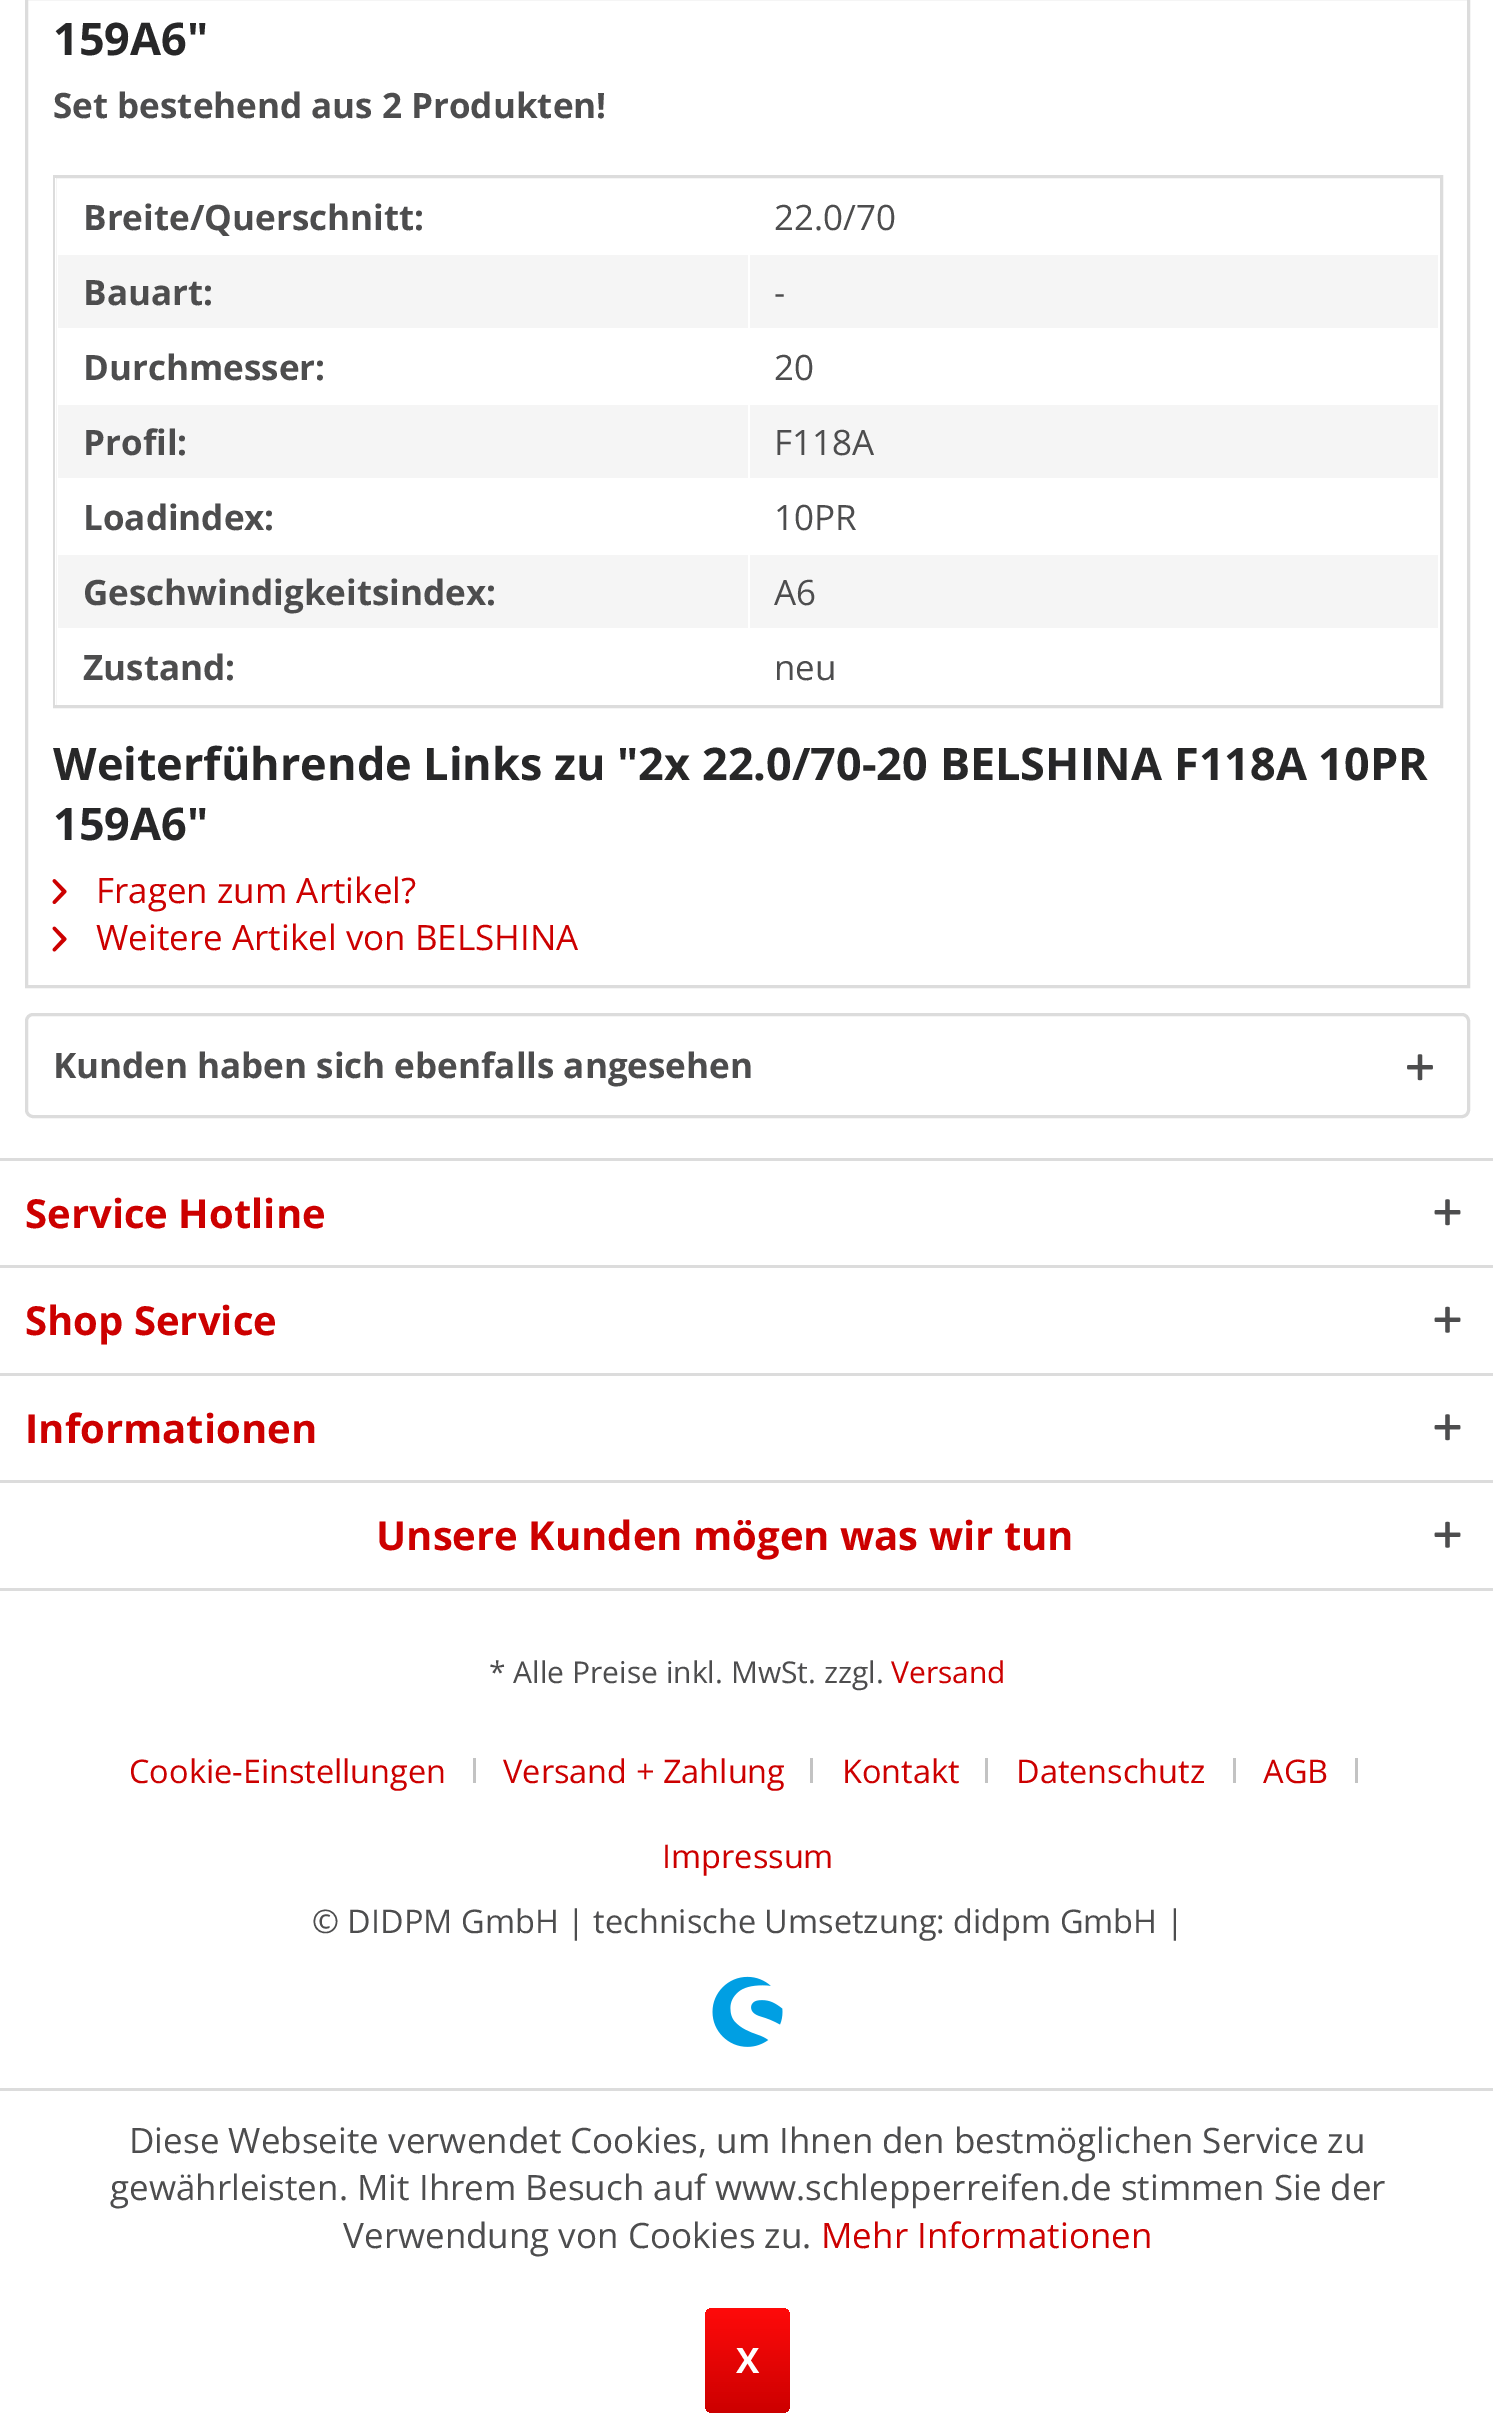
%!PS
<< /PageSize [1493 2436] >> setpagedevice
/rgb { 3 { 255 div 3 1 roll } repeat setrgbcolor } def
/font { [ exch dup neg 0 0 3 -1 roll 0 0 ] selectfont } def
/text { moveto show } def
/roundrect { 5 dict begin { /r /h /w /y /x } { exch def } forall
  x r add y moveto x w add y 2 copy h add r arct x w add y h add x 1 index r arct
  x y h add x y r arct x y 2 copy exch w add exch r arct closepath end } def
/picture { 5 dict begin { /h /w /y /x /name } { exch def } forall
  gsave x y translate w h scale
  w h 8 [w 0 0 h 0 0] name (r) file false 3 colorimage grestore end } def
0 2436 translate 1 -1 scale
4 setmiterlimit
255 255 255 rgb
0 0 1493 2436 rectfill
220 220 220 rgb
3 setlinewidth
26.5 -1.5 1442 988 rectstroke
54.5 176.5 1387 530 rectstroke
255 255 255 rgb
55 178 1 527 rectfill
245 245 245 rgb
58 255 690 73 rectfill
750 255 688 73 rectfill
58 405 690 73 rectfill
750 405 688 73 rectfill
58 555 690 73 rectfill
750 555 688 73 rectfill
(img_01.rgb) 52 879 15 25 picture
(img_02.rgb) 52 926 15 26 picture
220 220 220 rgb
26.5 1014.5 1442 102 6.5 roundrect stroke
(img_03.rgb) 1407 1054 26 27 picture
0 1158 1493 3 rectfill
(img_04.rgb) 1434 1199 27 27 picture
0 1265 1493 3 rectfill
(img_05.rgb) 1434 1306 27 27 picture
0 1373 1493 3 rectfill
(img_04.rgb) 1434 1414 27 27 picture
0 1480 1493 3 rectfill
0 1588 1493 3 rectfill
(img_05.rgb) 1434 1521 27 27 picture
195 195 195 rgb
473 1758 3 25 rectfill
810 1758 3 25 rectfill
985 1758 3 25 rectfill
1233 1758 3 25 rectfill
1355 1758 3 25 rectfill
(img_06.rgb) 712 1976 71 71 picture
220 220 220 rgb
0 2088 1493 3 rectfill
gsave 705 2308 85 105 8 roundrect clip newpath
<< /ShadingType 2 /ColorSpace /DeviceRGB /Coords [748 2308 748 2413] /Extend [true true] /Function << /FunctionType 2 /Domain [0 1] /C0 [1 0.039 0.039] /C1 [0.8 0 0] /N 1 >> >> shfill grestore
/OpenSans-Bold 45 font
39 39 40 rgb
(159A6") 53 55 text
/OpenSans-Bold 35 font
77 77 78 rgb
(Set bestehend aus 2 Produkten!) 53 118 text
(Breite/Querschnitt:) 83 230 text
/OpenSans-Regular 35 font
(22.0/70) 774 230 text
/OpenSans-Bold 35 font
(Bauart:) 83 305 text
/OpenSans-Regular 35 font
(-) 774 305 text
/OpenSans-Bold 35 font
(Durchmesser:) 83 380 text
/OpenSans-Regular 35 font
(20) 774 380 text
/OpenSans-Bold 35 font
(Profil:) 83 455 text
/OpenSans-Regular 35 font
(F118A) 774 455 text
/OpenSans-Bold 35 font
(Loadindex:) 83 530 text
/OpenSans-Regular 35 font
(10PR) 774 530 text
/OpenSans-Bold 35 font
(Geschwindigkeitsindex:) 83 605 text
/OpenSans-Regular 35 font
(A6) 774 605 text
/OpenSans-Bold 35 font
(Zustand:) 83 680 text
/OpenSans-Regular 35 font
(neu) 774 680 text
/OpenSans-Bold 45 font
39 39 40 rgb
(Weiterführende Links zu "2x 22.0/70-20 BELSHINA F118A 10PR) 53 780 text
(159A6") 53 840 text
/OpenSans-Regular 35 font
204 0 0 rgb
(Fragen zum Artikel?) 96 903 text
(Weitere Artikel von BELSHINA) 96 950 text
/OpenSans-Bold 35 font
77 77 78 rgb
(Kunden haben sich ebenfalls angesehen) 53 1078 text
/OpenSans-Bold 40 font
204 0 0 rgb
(Service Hotline) 25 1228 text
(Shop Service) 25 1335 text
(Informationen) 25 1443 text
(Unsere Kunden mögen was wir tun) 376 1550 text
/OpenSans-Regular 30 font
77 77 78 rgb
(* Alle Preise inkl. MwSt. zzgl.) 489 1683 text
204 0 0 rgb
(Versand) 891 1683 text
/OpenSans-Regular 32.5 font
(Cookie-Einstellungen) 129 1783 text
(Versand + Zahlung) 503 1783 text
(Kontakt) 842 1783 text
(Datenschutz) 1016 1783 text
(AGB) 1263 1783 text
(Impressum) 662 1868 text
77 77 78 rgb
(© DIDPM GmbH | technische Umsetzung: didpm GmbH |) 312 1933 text
/OpenSans-Regular 35 font
(Diese Webseite verwendet Cookies, um Ihnen den bestmöglichen Service zu) 129 2153 text
(gewährleisten. Mit Ihrem Besuch auf www.schlepperreifen.de stimmen Sie der) 110 2200 text
(Verwendung von Cookies zu.) 343 2248 text
204 0 0 rgb
(Mehr Informationen) 821 2248 text
/OpenSans-Bold 35 font
255 255 255 rgb
(X) 736 2373 text
showpage
